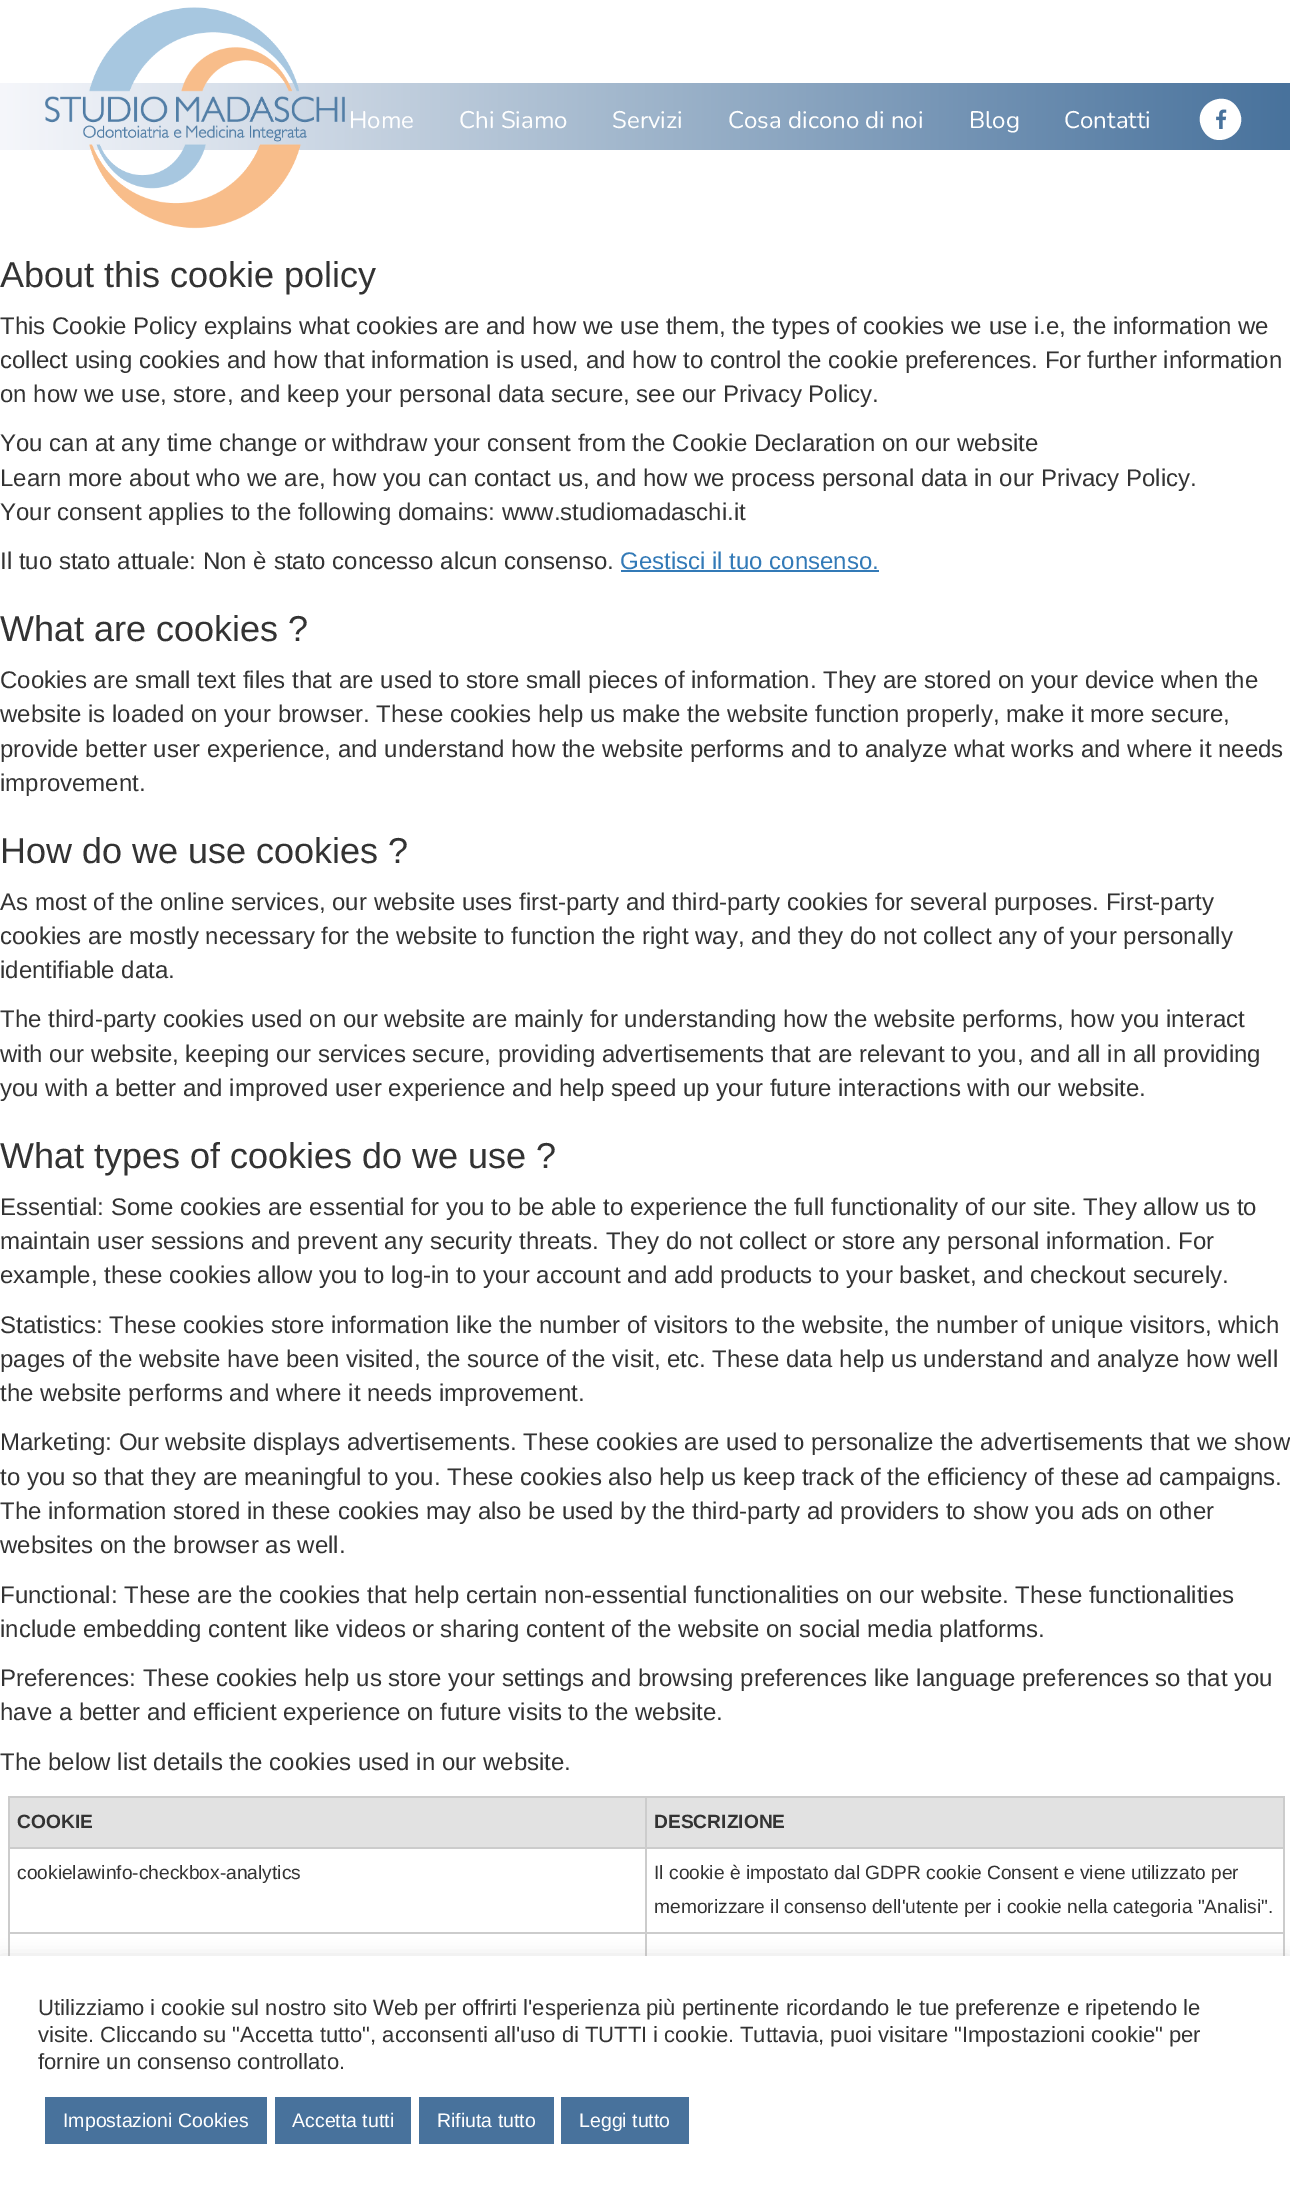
%!PS
<< /PageSize [1290 2188] /PageUsesTransparency true >> setpagedevice
/rgb { 3 { 255 div 3 1 roll } repeat setrgbcolor } def
/font { [ exch dup neg 0 0 3 -1 roll 0 0 ] selectfont } def
/text { moveto show } def
/alpha { dup .setfillconstantalpha .setstrokeconstantalpha } def
/roundrect { 5 dict begin { /r /h /w /y /x } { exch def } forall
  x r add y moveto x w add y 2 copy h add r arct x w add y h add x 1 index r arct
  x y h add x y r arct x y 2 copy exch w add exch r arct closepath end } def
/shadow { 12 dict begin { /a /b /q /h /w /y /x } { exch def } forall gsave /was 0 def
  9 -2 -9 { dup b mul 4 div /e exch def 1 sub .425 mul 2.718 exch exp 1 add a .99 .min exch div /now exch def
    1 1 now sub 1 was sub div sub alpha /was now def
    w h .min e 2 mul add 0 gt { x e sub y e sub w e 2 mul add h e 2 mul add
      q e add b .6 mul add w h .min 2 div e add .min 0 .max roundrect fill } if } for grestore end } def
/picture { 5 dict begin { /h /w /y /x /name } { exch def } forall
  gsave x y translate w h scale
  w h 8 [w 0 0 h 0 0] name (r) file false 3 colorimage grestore end } def
0 .pushpdf14devicefilter
0 2188 translate 1 -1 scale
4 setmiterlimit
255 255 255 rgb
0 0 1290 2188 rectfill
gsave 0 83 moveto 1290 0 rlineto 0 67 rlineto -1290 0 rlineto closepath clip newpath
<< /ShadingType 2 /ColorSpace /DeviceRGB /Coords [0 116 1290 116] /Extend [true true] /Function << /FunctionType 2 /Domain [0 1] /C0 [0.965 0.969 0.984] /C1 [0.282 0.447 0.612] /N 1 >> >> shfill grestore
(img_01.rgb) 45 7 300 222 picture
1238 109 moveto 14 23 -22 44 -35 21 rcurveto -14 -24 22 -44 35 -21 rcurveto closepath fill
(img_02.rgb) 1216 109 11 20 picture
51 122 183 rgb
621 570 258 2 rectfill
204 204 204 rgb
8 1796 1276 2 rectfill
8 1796 2 160 rectfill
226 226 226 rgb
10 1798 635 49 rectfill
204 204 204 rgb
1283 1796 2 160 rectfill
645 1932 2 24 rectfill
645 1932 639 2 rectfill
645 1847 2 87 rectfill
645 1847 639 2 rectfill
645 1796 2 52 rectfill
8 1847 639 2 rectfill
226 226 226 rgb
647 1798 636 49 rectfill
204 204 204 rgb
8 1932 639 2 rectfill
172 171 171 rgb
0 1955 1290 232 0 7.5 0.3 shadow
255 255 255 rgb
0 1956 1290 232 rectfill
72 114 156 rgb
45 2097 222 47 rectfill
275 2097 136 47 rectfill
419 2097 135 47 rectfill
561 2097 128 47 rectfill
/Nunito-Regular 24 font
255 255 255 rgb
(Home) 349 128 text
(Chi Siamo) 459 128 text
(Servizi) 612 128 text
(Cosa dicono di noi) 728 128 text
(Blog) 969 128 text
(Contatti) 1064 128 text
/LiberationSans-Regular 36 font
51 51 51 rgb
(About this cookie policy) 0 287 text
/LiberationSans-Regular 24 font
(This Cookie Policy explains what cookies are and how we use them, the types of cookies we use i.e, the information we) 0 334 text
(collect using cookies and how that information is used, and how to control the cookie preferences. For further information) 0 368 text
(on how we use, store, and keep your personal data secure, see our Privacy Policy.) 0 402 text
(You can at any time change or withdraw your consent from the Cookie Declaration on our website) 0 451 text
(Learn more about who we are, how you can contact us, and how we process personal data in our Privacy Policy.) 0 486 text
(Your consent applies to the following domains: www.studiomadaschi.it) 0 520 text
(Il tuo stato attuale: Non è stato concesso alcun consenso.) 0 569 text
51 122 183 rgb
(Gestisci il tuo consenso.) 620 569 text
/LiberationSans-Regular 36 font
51 51 51 rgb
(What are cookies ?) 0 641 text
/LiberationSans-Regular 24 font
(Cookies are small text files that are used to store small pieces of information. They are stored on your device when the) 0 688 text
(website is loaded on your browser. These cookies help us make the website function properly, make it more secure,) 0 722 text
(provide better user experience, and understand how the website performs and to analyze what works and where it needs) 0 757 text
(improvement.) 0 791 text
/LiberationSans-Regular 36 font
(How do we use cookies ?) 0 863 text
/LiberationSans-Regular 24 font
(As most of the online services, our website uses first-party and third-party cookies for several purposes. First-party) 0 910 text
(cookies are mostly necessary for the website to function the right way, and they do not collect any of your personally) 0 944 text
(identifiable data.) 0 978 text
(The third-party cookies used on our website are mainly for understanding how the website performs, how you interact) 0 1027 text
(with our website, keeping our services secure, providing advertisements that are relevant to you, and all in all providing) 0 1062 text
(you with a better and improved user experience and help speed up your future interactions with our website.) 0 1096 text
/LiberationSans-Regular 36 font
(What types of cookies do we use ?) 0 1168 text
/LiberationSans-Regular 24 font
(Essential: Some cookies are essential for you to be able to experience the full functionality of our site. They allow us to) 0 1215 text
(maintain user sessions and prevent any security threats. They do not collect or store any personal information. For) 0 1249 text
(example, these cookies allow you to log-in to your account and add products to your basket, and checkout securely.) 0 1283 text
(Statistics: These cookies store information like the number of visitors to the website, the number of unique visitors, which) 0 1333 text
(pages of the website have been visited, the source of the visit, etc. These data help us understand and analyze how well) 0 1367 text
(the website performs and where it needs improvement.) 0 1401 text
(Marketing: Our website displays advertisements. These cookies are used to personalize the advertisements that we show) 0 1450 text
(to you so that they are meaningful to you. These cookies also help us keep track of the efficiency of these ad campaigns.) 0 1485 text
(The information stored in these cookies may also be used by the third-party ad providers to show you ads on other) 0 1519 text
(websites on the browser as well.) 0 1553 text
(Functional: These are the cookies that help certain non-essential functionalities on our website. These functionalities) 0 1603 text
(include embedding content like videos or sharing content of the website on social media platforms.) 0 1637 text
(Preferences: These cookies help us store your settings and browsing preferences like language preferences so that you) 0 1686 text
(have a better and efficient experience on future visits to the website.) 0 1720 text
(The below list details the cookies used in our website.) 0 1770 text
/LiberationSans-Bold 19.2 font
(COOKIE) 17 1828 text
(DESCRIZIONE) 654 1828 text
/LiberationSans-Regular 19.2 font
(cookielawinfo-checkbox-analytics) 17 1879 text
(Il cookie è impostato dal GDPR cookie Consent e viene utilizzato per) 654 1879 text
(memorizzare il consenso dell'utente per i cookie nella categoria "Analisi".) 654 1913 text
/LiberationSans-Regular 22 font
(Utilizziamo i cookie sul nostro sito Web per offrirti l'esperienza più pertinente ricordando le tue preferenze e ripetendo le) 38 2015 text
(visite. Cliccando su "Accetta tutto", acconsenti all'uso di TUTTI i cookie. Tuttavia, puoi visitare "Impostazioni cookie" per) 38 2042 text
(fornire un consenso controllato.) 38 2069 text
/LiberationSans-Regular 19.5 font
255 255 255 rgb
(Impostazioni Cookies) 63 2127 text
(Accetta tutti) 292 2127 text
(Rifiuta tutto) 437 2127 text
(Leggi tutto) 579 2127 text
.poppdf14devicefilter showpage
